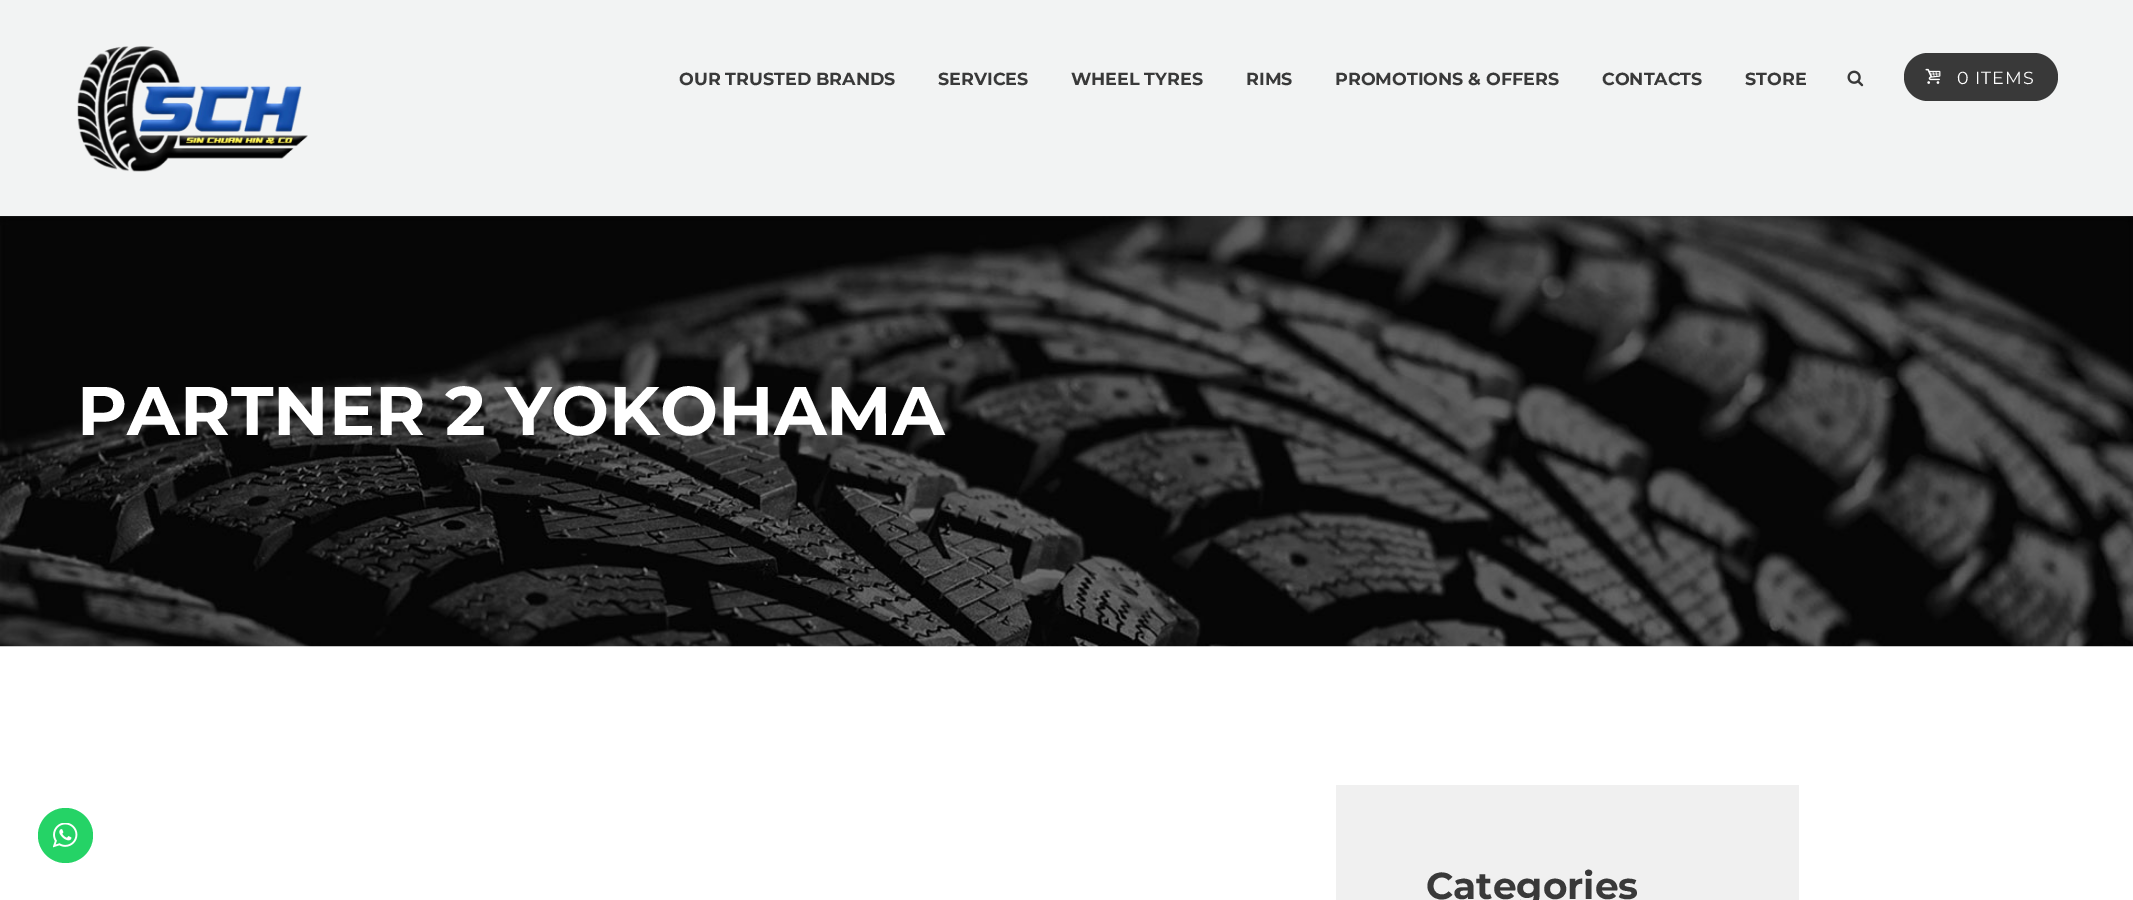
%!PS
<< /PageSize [2133 900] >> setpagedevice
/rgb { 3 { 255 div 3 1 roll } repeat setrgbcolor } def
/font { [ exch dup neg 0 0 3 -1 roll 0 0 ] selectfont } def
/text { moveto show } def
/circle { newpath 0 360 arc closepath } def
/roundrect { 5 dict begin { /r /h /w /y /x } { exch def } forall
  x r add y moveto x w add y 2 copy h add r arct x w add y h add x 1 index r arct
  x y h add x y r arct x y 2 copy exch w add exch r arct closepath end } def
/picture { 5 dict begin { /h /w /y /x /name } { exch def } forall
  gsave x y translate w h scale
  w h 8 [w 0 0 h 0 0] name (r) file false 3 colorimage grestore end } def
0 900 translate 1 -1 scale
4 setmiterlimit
255 255 255 rgb
0 0 2133 900 rectfill
37 211 102 rgb
65.5 835.5 27.5 circle fill
(img_01.rgb) 53 823 25 25 picture
242 243 243 rgb
0 0 2133 216 rectfill
(img_02.rgb) 77 46 231 126 picture
(img_03.rgb) 1847 70 17 17 picture
57 57 57 rgb
1904 53 154 48 24 roundrect fill
(img_04.rgb) 1925 68 16 16 picture
(img_05.rgb) 0 216 2133 431 picture
240 240 240 rgb
1336 785 463 115 rectfill
/Montserrat-Bold 17.5 font
57 57 57 rgb
(OUR TRUSTED BRANDS) 679 85 text
(SERVICES) 938 85 text
(WHEEL TYRES) 1071 85 text
(RIMS) 1246 85 text
(PROMOTIONS & OFFERS) 1335 85 text
(CONTACTS) 1602 85 text
(STORE) 1745 85 text
/Montserrat-Regular 17.5 font
255 255 255 rgb
1957 84 moveto 1 0 (0 ITEMS) ashow
/Montserrat-Bold 68.75 font
(PARTNER 2 YOKOHAMA) 77 435 text
/Montserrat-Bold 37.5 font
57 57 57 rgb
(Categories) 1426 899 text
showpage
